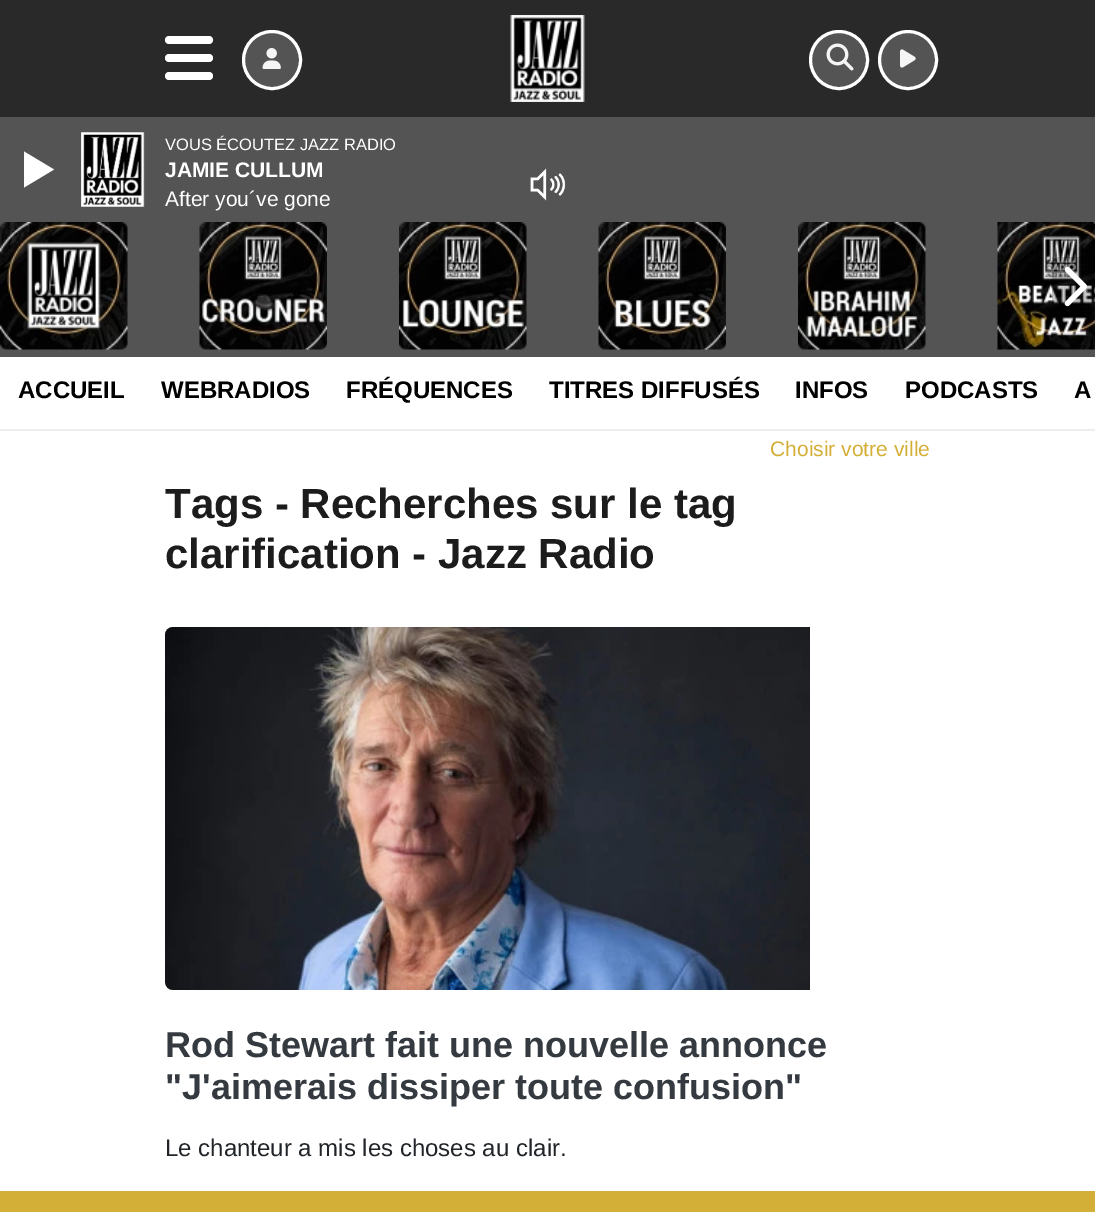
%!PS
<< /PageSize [1095 1212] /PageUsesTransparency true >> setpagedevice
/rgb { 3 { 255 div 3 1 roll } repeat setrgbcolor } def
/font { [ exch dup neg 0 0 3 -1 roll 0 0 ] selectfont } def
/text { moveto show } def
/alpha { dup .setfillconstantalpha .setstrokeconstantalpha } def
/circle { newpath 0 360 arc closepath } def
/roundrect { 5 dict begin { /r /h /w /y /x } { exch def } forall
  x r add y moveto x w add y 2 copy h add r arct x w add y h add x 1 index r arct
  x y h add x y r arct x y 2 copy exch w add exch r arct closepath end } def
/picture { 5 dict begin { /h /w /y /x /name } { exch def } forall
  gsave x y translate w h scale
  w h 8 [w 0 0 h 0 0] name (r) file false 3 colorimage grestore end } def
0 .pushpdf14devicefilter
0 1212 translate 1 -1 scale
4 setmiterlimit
255 255 255 rgb
0 0 1095 1212 rectfill
84 84 84 rgb
0 117 1095 240 rectfill
(img_01.rgb) 81 132 64 75 picture
255 255 255 rgb
24 187.5 moveto 0 -36 rlineto 30 18 rlineto closepath fill
(img_02.rgb) 530 168 36 33 picture
(img_03.rgb) 0 222 128 128 picture
(img_04.rgb) 199 222 128 128 picture
(img_05.rgb) 399 222 128 128 picture
(img_06.rgb) 598 222 128 128 picture
(img_07.rgb) 798 222 128 128 picture
(img_08.rgb) 997 222 98 128 picture
0.2 alpha
0 0 0 rgb
1052 257 43 52 rectfill
1 alpha
(img_09.rgb) 1064 266 23 41 picture
41 41 41 rgb
0 0 1095 117 rectfill
255 255 255 rgb
165 36 48 8 4 roundrect fill
165 54 48 8 4 roundrect fill
165 72 48 8 4 roundrect fill
84 84 84 rgb
272 60 28.5 circle gsave fill grestore
255 255 255 rgb
3 setlinewidth
stroke
(img_10.rgb) 262 48 19 21 picture
(img_11.rgb) 510 15 75 87 picture
84 84 84 rgb
839 60 28.5 circle gsave fill grestore
255 255 255 rgb
stroke
(img_12.rgb) 826 43 28 28 picture
84 84 84 rgb
908 60 28.5 circle gsave fill grestore
255 255 255 rgb
stroke
(img_13.rgb) 900 49 16 19 picture
238 238 238 rgb
0 429 1095 2 rectfill
(img_14.rgb) 165 627 645 363 picture
212 175 55 rgb
0 1191 1095 21 rectfill
/LiberationSans-Regular 16.5 font
255 255 255 rgb
(VOUS ÉCOUTEZ JAZZ RADIO) 165 150 text
/LiberationSans-Bold 21 font
(JAMIE CULLUM) 165 177 text
/LiberationSans-Regular 21 font
(After you´ve gone) 165 206 text
/LiberationSans-Bold 24 font
0 0 0 rgb
(ACCUEIL) 18 398 text
(WEBRADIOS) 161 398 text
(FRÉQUENCES) 346 398 text
(TITRES DIFFUSÉS) 549 398 text
(INFOS) 795 398 text
(PODCASTS) 905 398 text
(A) 1074 398 text
/LiberationSans-Regular 21 font
212 175 55 rgb
(Choisir votre ville) 770 456 text
/LiberationSans-Bold 42 font
28 28 28 rgb
(Tags - Recherches sur le tag) 165 518 text
(clarification - Jazz Radio) 165 568 text
/LiberationSans-Bold 36 font
52 58 64 rgb
(Rod Stewart fait une nouvelle annonce) 165 1057 text
("J'aimerais dissiper toute confusion") 165 1099 text
/LiberationSans-Regular 24 font
33 37 41 rgb
(Le chanteur a mis les choses au clair.) 165 1156 text
.poppdf14devicefilter showpage
